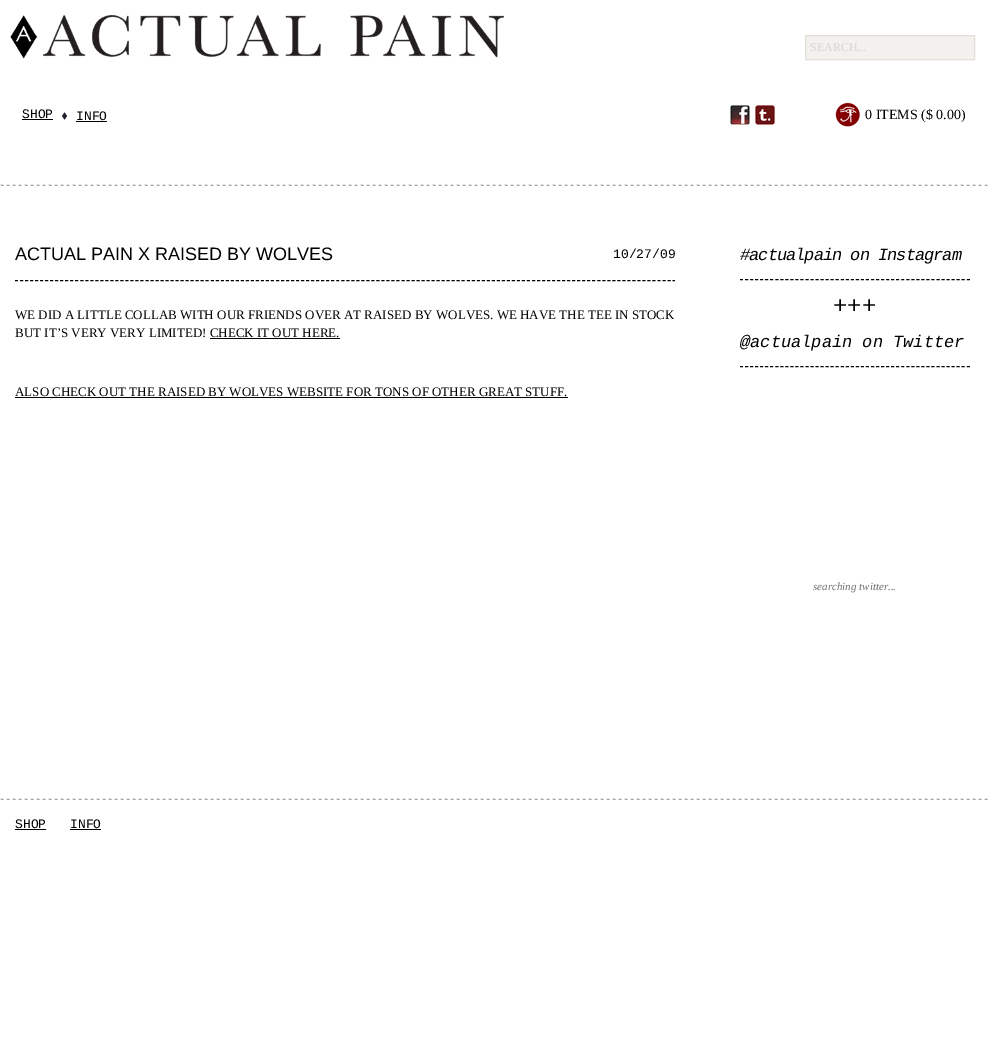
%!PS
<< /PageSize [990 1042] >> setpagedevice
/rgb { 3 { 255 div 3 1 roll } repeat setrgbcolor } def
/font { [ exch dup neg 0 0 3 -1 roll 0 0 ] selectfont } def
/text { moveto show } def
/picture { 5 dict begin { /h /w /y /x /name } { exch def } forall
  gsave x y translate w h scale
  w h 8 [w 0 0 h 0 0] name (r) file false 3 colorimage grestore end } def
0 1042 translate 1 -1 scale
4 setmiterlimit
255 255 255 rgb
0 0 990 1042 rectfill
(img_01.rgb) 10 15 494 44 picture
242 241 237 rgb
805.5 35.5 moveto 169 0 rlineto 0 24 rlineto -169 0 rlineto closepath gsave fill grestore
226 223 216 rgb
stroke
0 0 0 rgb
22 119 31 1 rectfill
(img_02.rgb) 62 112 6 8 picture
76 121 31 1 rectfill
(img_03.rgb) 835 102 25 25 picture
(img_04.rgb) 0 184 988 2 picture
[3 2.02] 0 setdash
15 280.5 moveto 660 0 rlineto stroke
210 338 130 1 rectfill
15 397 553 1 rectfill
[3 2.04] 0 setdash
740 279.5 moveto 230 0 rlineto stroke
740 366.5 moveto 230 0 rlineto stroke
(img_04.rgb) 0 798 988 2 picture
15 829 31 1 rectfill
70 829 31 1 rectfill
(img_05.rgb) 730 105 20 20 picture
(img_06.rgb) 755 105 20 20 picture
/LiberationSerif-Regular 12 font
215 213 216 rgb
(SEARCH...) 810 51 text
/LiberationMono-Regular 13 font
0 0 0 rgb
(SHOP) 22 118 text
(INFO) 76 120 text
/LiberationSerif-Regular 14 font
(0 ITEMS \($ 0.00\)) 865 119 text
/LiberationSans-Regular 18 font
(ACTUAL PAIN X RAISED BY WOLVES) 15 260 text
/LiberationMono-Regular 13 font
(10/27/09) 613 258 text
/LiberationSerif-Regular 13 font
(WE DID A LITTLE COLLAB WITH OUR FRIENDS OVER AT RAISED BY WOLVES. WE HAVE THE TEE IN STOCK) 15 319 text
(BUT IT’S VERY VERY LIMITED! CHECK IT OUT HERE.) 15 337 text
(ALSO CHECK OUT THE RAISED BY WOLVES WEBSITE FOR TONS OF OTHER GREAT STUFF.) 15 396 text
/LiberationMono-Italic 17 font
740 260 moveto -1 0 (#actualpain on Instagram) ashow
/LiberationMono-Regular 24 font
(+++) 833 313 text
/LiberationMono-Italic 17 font
(@actualpain on Twitter) 740 347 text
/LiberationSerif-Italic 11 font
109 111 113 rgb
(searching twitter...) 813 590 text
/LiberationMono-Regular 13 font
0 0 0 rgb
(SHOP) 15 828 text
(INFO) 70 828 text
showpage
